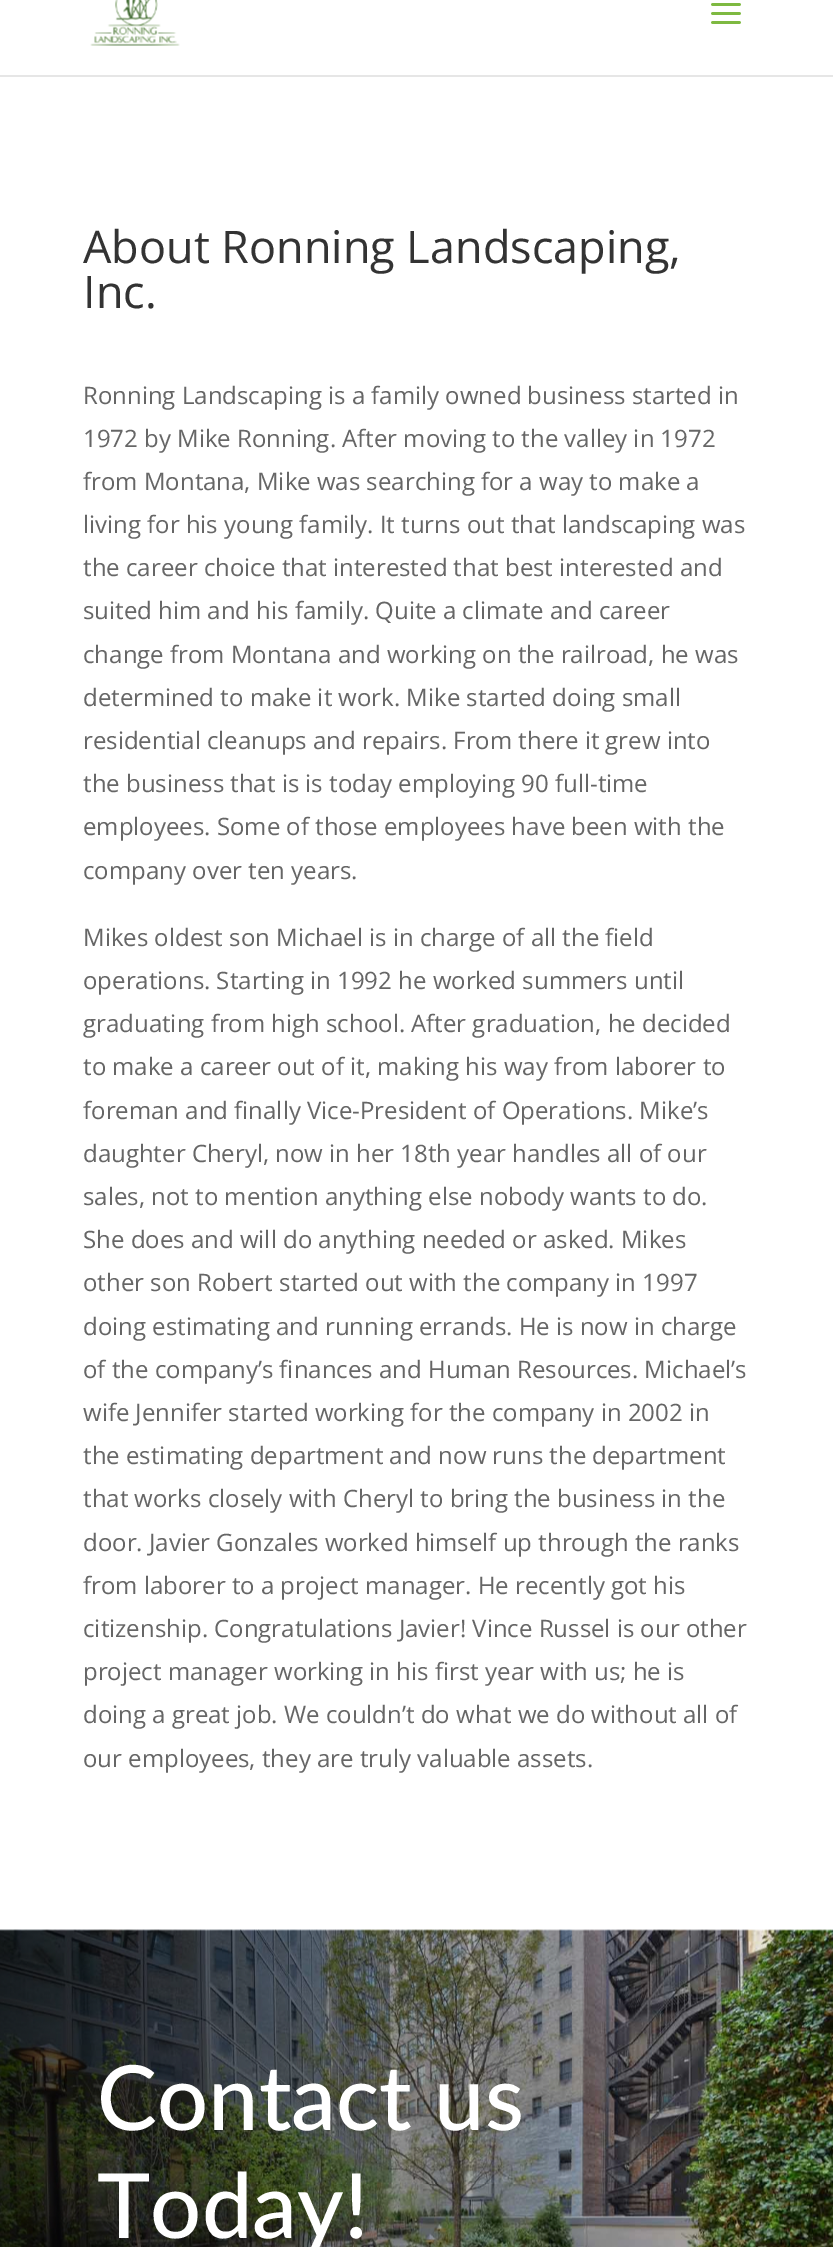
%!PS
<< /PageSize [833 2247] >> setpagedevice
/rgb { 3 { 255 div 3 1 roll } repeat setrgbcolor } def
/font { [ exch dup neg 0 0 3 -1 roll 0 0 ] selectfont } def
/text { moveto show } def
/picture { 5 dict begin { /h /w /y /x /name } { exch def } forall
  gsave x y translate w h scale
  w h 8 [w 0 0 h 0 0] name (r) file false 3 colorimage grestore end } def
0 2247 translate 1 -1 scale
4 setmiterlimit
255 255 255 rgb
0 0 833 2247 rectfill
230 230 230 rgb
0 75 833 2 rectfill
(img_01.rgb) 90 0 90 46 picture
(img_02.rgb) 711 3 30 21 picture
(img_03.rgb) 0 1929 833 318 picture
/OpenSans-Regular 45 font
51 51 51 rgb
(About Ronning Landscaping,) 83 263 text
(Inc.) 83 308 text
/OpenSans-Regular 24 font
102 102 102 rgb
(Ronning Landscaping is a family owned business started in) 83 404 text
(1972 by Mike Ronning. After moving to the valley in 1972) 83 447 text
(from Montana, Mike was searching for a way to make a) 83 490 text
(living for his young family. It turns out that landscaping was) 83 533 text
(the career choice that interested that best interested and) 83 576 text
(suited him and his family. Quite a climate and career) 83 619 text
(change from Montana and working on the railroad, he was) 83 663 text
(determined to make it work. Mike started doing small) 83 706 text
(residential cleanups and repairs. From there it grew into) 83 749 text
(the business that is is today employing 90 full-time) 83 792 text
(employees. Some of those employees have been with the) 83 835 text
(company over ten years.) 83 879 text
(Mikes oldest son Michael is in charge of all the field) 83 946 text
(operations. Starting in 1992 he worked summers until) 83 989 text
(graduating from high school. After graduation, he decided) 83 1032 text
(to make a career out of it, making his way from laborer to) 83 1075 text
(foreman and finally Vice-President of Operations. Mike’s) 83 1119 text
(daughter Cheryl, now in her 18th year handles all of our) 83 1162 text
(sales, not to mention anything else nobody wants to do.) 83 1205 text
(She does and will do anything needed or asked. Mikes) 83 1248 text
(other son Robert started out with the company in 1997) 83 1291 text
(doing estimating and running errands. He is now in charge) 83 1335 text
(of the company’s finances and Human Resources. Michael’s) 83 1378 text
(wife Jennifer started working for the company in 2002 in) 83 1421 text
(the estimating department and now runs the department) 83 1464 text
(that works closely with Cheryl to bring the business in the) 83 1507 text
(door. Javier Gonzales worked himself up through the ranks) 83 1551 text
(from laborer to a project manager. He recently got his) 83 1594 text
(citizenship. Congratulations Javier! Vince Russel is our other) 83 1637 text
(project manager working in his first year with us; he is) 83 1680 text
(doing a great job. We couldn’t do what we do without all of) 83 1723 text
(our employees, they are truly valuable assets.) 83 1767 text
/Lato-Medium 90 font
255 255 255 rgb
(Contact us) 97 2130 text
(Today!) 97 2238 text
showpage
